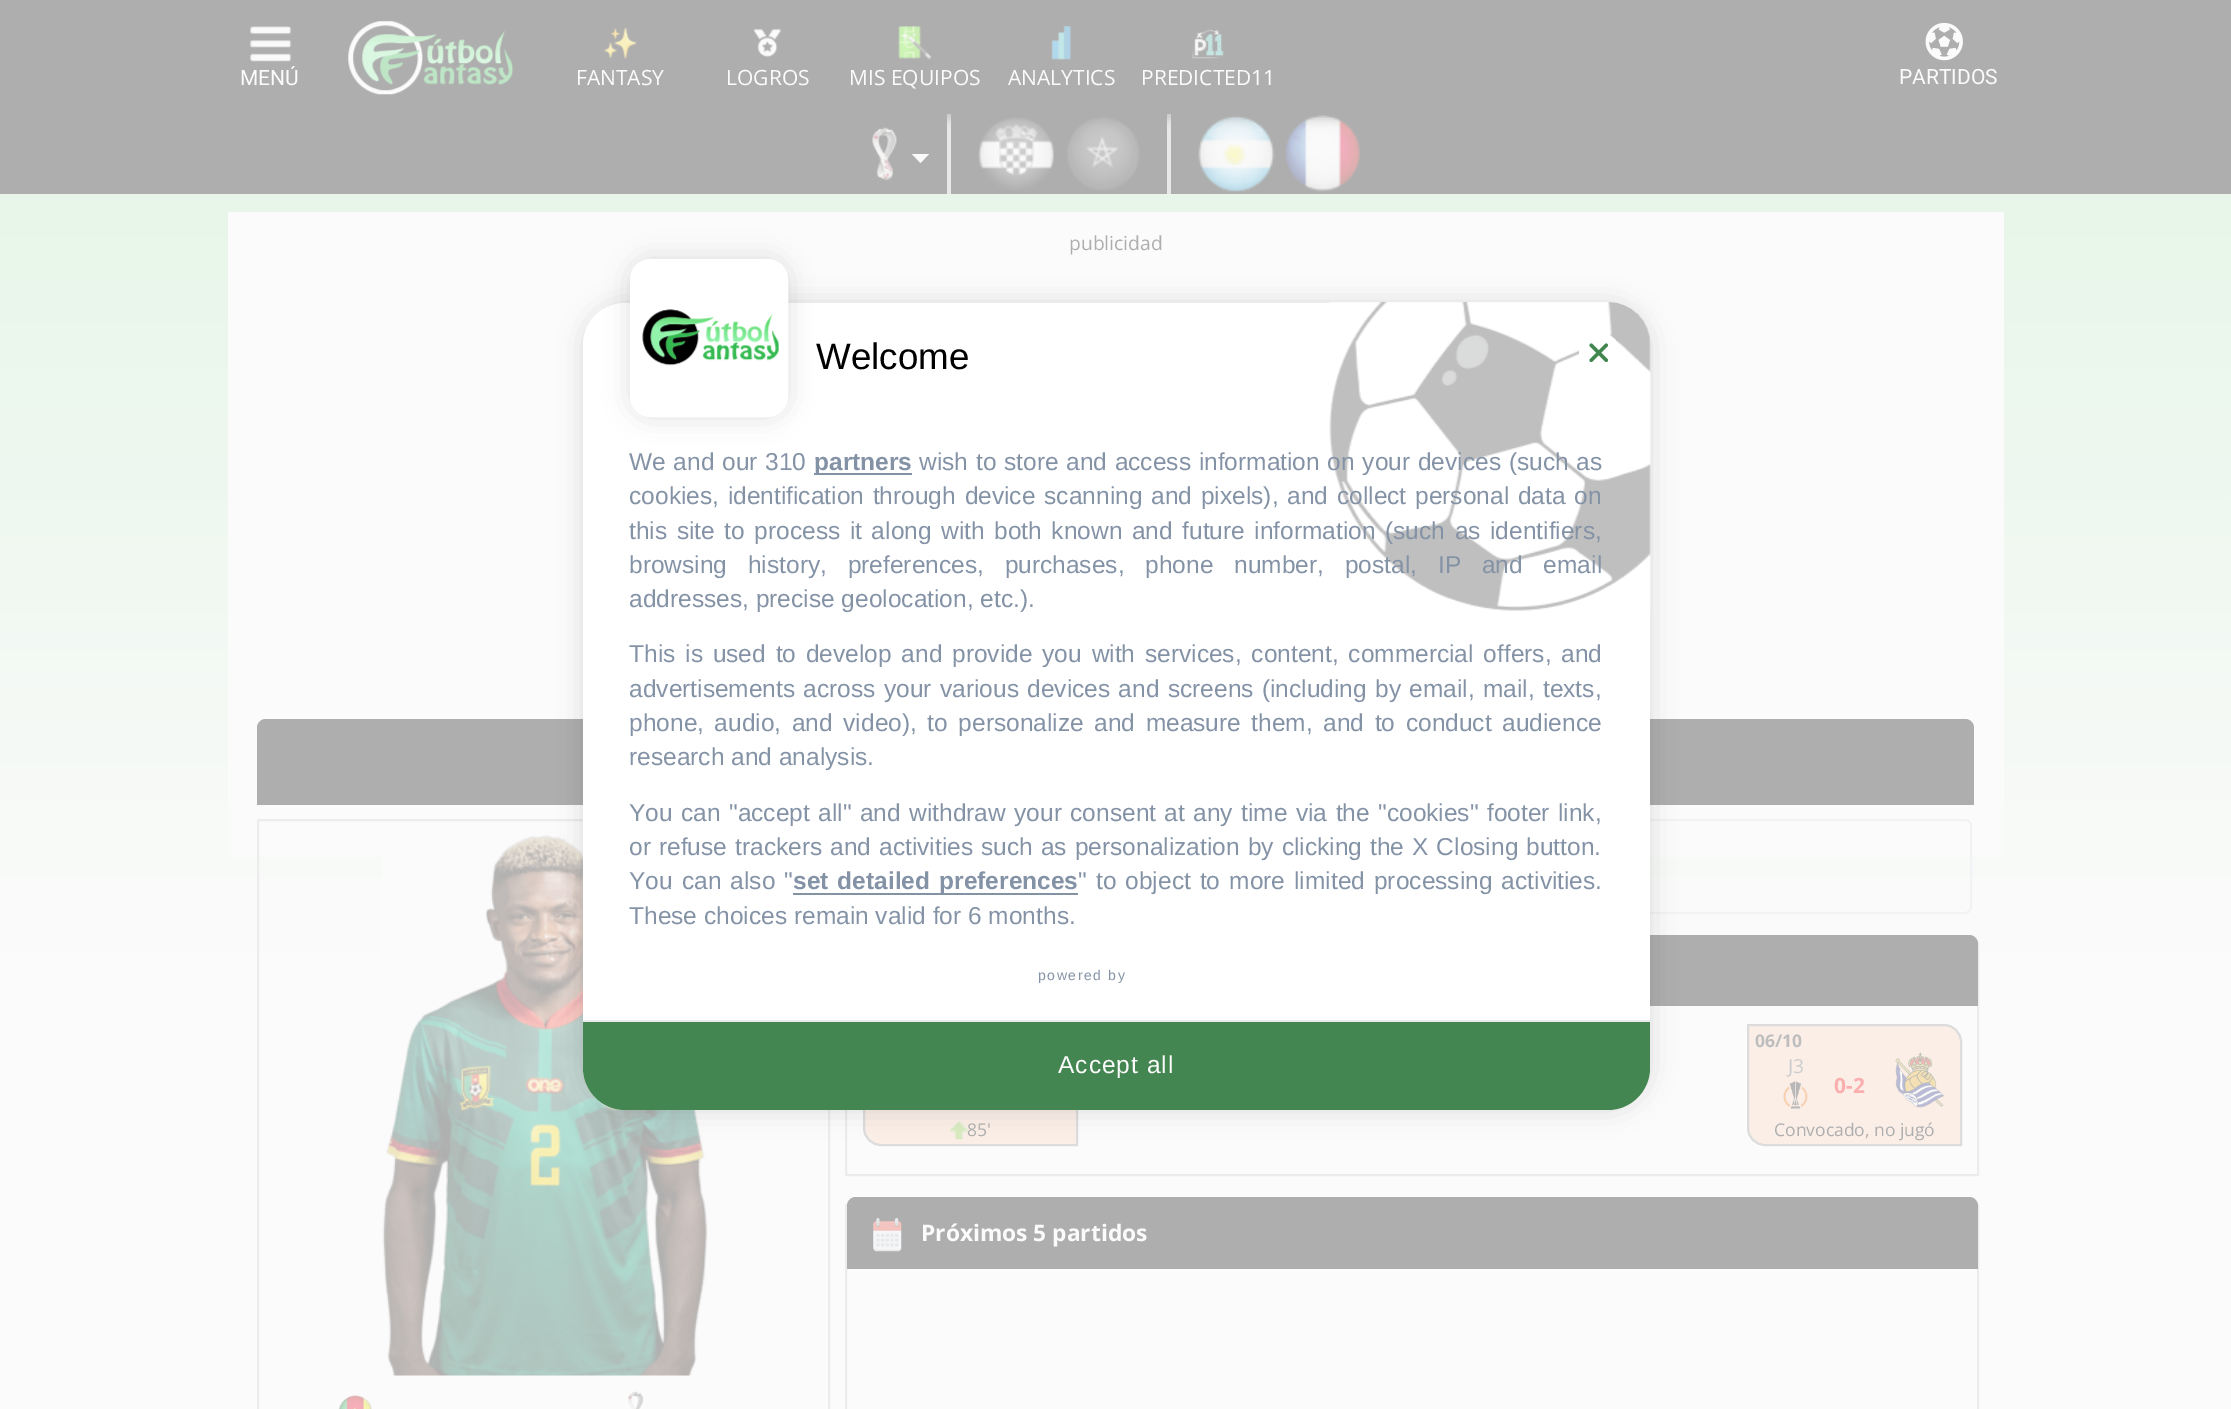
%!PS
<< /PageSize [2231 1409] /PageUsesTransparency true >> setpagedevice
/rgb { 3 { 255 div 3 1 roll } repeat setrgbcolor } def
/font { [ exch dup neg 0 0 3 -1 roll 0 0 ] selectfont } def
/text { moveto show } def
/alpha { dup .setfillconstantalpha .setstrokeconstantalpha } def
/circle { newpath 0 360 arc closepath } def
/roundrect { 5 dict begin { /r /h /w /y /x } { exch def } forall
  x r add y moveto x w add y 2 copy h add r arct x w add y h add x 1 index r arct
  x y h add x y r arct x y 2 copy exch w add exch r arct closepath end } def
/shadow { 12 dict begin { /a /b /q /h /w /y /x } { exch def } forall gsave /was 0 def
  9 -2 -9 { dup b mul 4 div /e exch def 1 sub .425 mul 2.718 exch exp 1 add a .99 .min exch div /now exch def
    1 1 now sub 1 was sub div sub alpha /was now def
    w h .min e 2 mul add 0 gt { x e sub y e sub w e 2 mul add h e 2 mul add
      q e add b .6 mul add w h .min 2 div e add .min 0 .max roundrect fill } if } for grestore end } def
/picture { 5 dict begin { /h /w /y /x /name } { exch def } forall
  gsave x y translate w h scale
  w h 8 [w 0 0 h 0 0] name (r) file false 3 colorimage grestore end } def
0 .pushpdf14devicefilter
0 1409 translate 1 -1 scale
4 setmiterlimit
255 255 255 rgb
0 0 2231 1409 rectfill
gsave 0 194 moveto 2231 0 rlineto 0 1215 rlineto -2231 0 rlineto closepath clip newpath
<< /ShadingType 2 /ColorSpace /DeviceRGB /Coords [1116 0 1116 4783] /Extend [true true] /Function << /FunctionType 3 /Domain [0 1] /Functions [<< /FunctionType 2 /Domain [0 1] /C0 [0.89 0.961 0.894] /C1 [0.984 0.984 0.984] /N 1 >> << /FunctionType 2 /Domain [0 1] /C0 [0.984 0.984 0.984] /C1 [0.984 0.984 0.984] /N 1 >>] /Bounds [0.2] /Encode [0 1 0 1] >> >> shfill grestore
174 174 174 rgb
0 114 2231 80 rectfill
(img_09.rgb) 872 127 25 54 picture
232 232 232 rgb
947 114 4 80 rectfill
(img_10.rgb) 978 117 76 74 picture
(img_11.rgb) 1067 117 73 74 picture
1167 114 4 80 rectfill
(img_12.rgb) 1198 115 77 78 picture
(img_13.rgb) 1284 115 77 77 picture
174 174 174 rgb
0 5 2231 114 0 4.5 0.6 shadow
0 0 2231 114 rectfill
(img_01.rgb) 250 26 42 36 picture
(img_02.rgb) 348 21 166 74 picture
(img_03.rgb) 604 27 33 32 picture
(img_04.rgb) 753 28 29 30 picture
(img_05.rgb) 898 26 34 34 picture
(img_06.rgb) 1051 26 21 34 picture
(img_07.rgb) 1192 29 32 30 picture
(img_08.rgb) 1925 22 38 39 picture
251 251 251 rgb
912 154 moveto 17 0 rlineto -8.5 9 rlineto closepath fill
228 212 1776 645 rectfill
174 174 174 rgb
266 719 moveto 1699 0 rlineto 5 0 9 4 9 9 rcurveto 0 77 rlineto -1717 0 rlineto 0 -77 rlineto 0 -5 4 -9 9 -9 rcurveto closepath fill
236 236 236 rgb
2 setlinewidth
258 820 571 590 rectstroke
(img_14.rgb) 382 834 326 542 picture
(img_15.rgb) 338 1395 34 14 picture
(img_16.rgb) 627 1391 17 18 picture
241 242 243 rgb
853 820 1118 93 6 roundrect stroke
236 236 236 rgb
846 943 1132 232 rectstroke
174 174 174 rgb
856 935 moveto 1113 0 rlineto 5 0 9 4 9 9 rcurveto 0 62 rlineto -1131 0 rlineto 0 -62 rlineto 0 -5 4 -9 9 -9 rcurveto closepath fill
250 238 231 rgb
864 1025 moveto 196 0 rlineto 9.5 0 17 7.5 17 17 rcurveto 0 103 rlineto -196 0 rlineto -9.5 0 -17 -7.5 -17 -17 rcurveto closepath gsave fill grestore
220 220 220 rgb
stroke
(img_17.rgb) 950 1121 18 19 picture
250 238 231 rgb
1748 1025 moveto 196 0 rlineto 9.5 0 17 7.5 17 17 rcurveto 0 103 rlineto -196 0 rlineto -9.5 0 -17 -7.5 -17 -17 rcurveto closepath gsave fill grestore
220 220 220 rgb
stroke
(img_18.rgb) 1783 1081 25 28 picture
(img_19.rgb) 1895 1052 50 56 picture
236 236 236 rgb
846 1205 1132 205 rectstroke
174 174 174 rgb
856 1197 moveto 1113 0 rlineto 5 0 9 4 9 9 rcurveto 0 63 rlineto -1131 0 rlineto 0 -63 rlineto 0 -5 4 -9 9 -9 rcurveto closepath fill
(img_20.rgb) 873 1218 29 34 picture
0 0 0 rgb
583 303 1067 807 42 13 0.12 shadow
255 255 255 rgb
583 303 1067 807 42 roundrect fill
0 0 0 rgb
630 259 158 158 21 13 0.12 shadow
255 255 255 rgb
630 259 158 158 21 roundrect fill
(img_21.rgb) 642 309 137 57 picture
9 setlinewidth
634.5 263.5 149 149 16.5 roundrect stroke
(img_22.rgb) 1329 302 322 309 picture
1600 354 21 circle fill
65 134 79 rgb
1592.5 344 moveto 15 15 rlineto 0.5 0.5 0.5 2 0 2.5 rcurveto -1 0.5 -2 0.5 -2.5 0 rcurveto -15 -15 rlineto -0.5 -0.5 -0.5 -1.5 0 -2.5 rcurveto 0.5 -0.5 2 -0.5 2.5 0 rcurveto closepath fill
1590 359 moveto 15 -15 rlineto 0.5 -0.5 1.5 -0.5 2.5 0 rcurveto 0.5 1 0.5 2 0 2.5 rcurveto -15 15 rlineto -0.5 0.5 -2 0.5 -2.5 0 rcurveto -0.5 -0.5 -0.5 -2 0 -2.5 rcurveto closepath fill
132 146 166 rgb
814 473 98 2 rectfill
793 893 285 2 rectfill
68 134 81 rgb
583 1020 moveto 1067 0 rlineto 0 48 rlineto 0 23 -19 42 -42 42 rcurveto -983 0 rlineto -23 0 -42 -19 -42 -42 rcurveto closepath fill
234 234 234 rgb
583 1020 1067 2 rectfill
/Roboto-Regular 21 font
251 251 251 rgb
(MENÚ) 240 85 text
/OpenSans-Regular 21 font
(FANTASY) 576 85 text
(LOGROS) 726 85 text
(MIS EQUIPOS) 849 85 text
(ANALYTICS) 1008 85 text
(PREDICTED11) 1141 85 text
/Roboto-Regular 21 font
(PARTIDOS) 1899 84 text
/OpenSans-Regular 19.25 font
174 174 174 rgb
(publicidad) 1069 250 text
/OpenSans-Regular 17.5 font
(85') 967 1136 text
/OpenSans-Bold 17.5 font
190 190 190 rgb
(06/10) 1755 1047 text
/OpenSans-Regular 19.25 font
205 205 205 rgb
(J3) 1788 1073 text
/OpenSans-Bold 21 font
251 174 174 rgb
(0-2) 1834 1093 text
/OpenSans-Regular 17.5 font
174 174 174 rgb
(Convocado, no jugó) 1774 1136 text
/OpenSans-Bold 22.75 font
251 251 251 rgb
(Próximos 5 partidos) 921 1241 text
/LiberationSans-Regular 36.75 font
0 0 0 rgb
(Welcome) 816 369 text
/LiberationSans-Regular 24.5 font
132 146 166 rgb
629 470 moveto 0.9 0 32 (We and our 310) widthshow
/LiberationSans-Bold 24.5 font
(partners) 814 470 text
/LiberationSans-Regular 24.5 font
919 470 moveto 0.9 0 32 (wish to store and access information on your devices \(such as) widthshow
629 504 moveto 2 0 32 (cookies, identification through device scanning and pixels\), and collect personal data on) widthshow
629 539 moveto 2.75 0 32 (this site to process it along with both known and future information \(such as identifiers,) widthshow
629 573 moveto 14 0 32 (browsing history, preferences, purchases, phone number, postal, IP and email) widthshow
(addresses, precise geolocation, etc.\).) 629 607 text
629 662 moveto 3 0 32 (This is used to develop and provide you with services, content, commercial offers, and) widthshow
629 697 moveto 1.5 0 32 (advertisements across your various devices and screens \(including by email, mail, texts,) widthshow
629 731 moveto 3.75 0 32 (phone, audio, and video\), to personalize and measure them, and to conduct audience) widthshow
(research and analysis.) 629 765 text
629 821 moveto 1.6 0 32 (You can "accept all" and withdraw your consent at any time via the "cookies" footer link,) widthshow
629 855 moveto 1.25 0 32 (or refuse trackers and activities such as personalization by clicking the X Closing button.) widthshow
629 889 moveto 2.25 0 32 (You can also ") widthshow
/LiberationSans-Bold 24.5 font
793 889 moveto 2.25 0 32 (set detailed preferences) widthshow
/LiberationSans-Regular 24.5 font
1078 889 moveto 2.25 0 32 (" to object to more limited processing activities.) widthshow
(These choices remain valid for 6 months.) 629 924 text
/LiberationSans-Regular 14 font
1038 980 moveto 1.6 0 (powered by) ashow
/LiberationSans-Regular 24.5 font
251 251 251 rgb
1058 1073 moveto 1 0 (Accept all) ashow
.poppdf14devicefilter showpage
